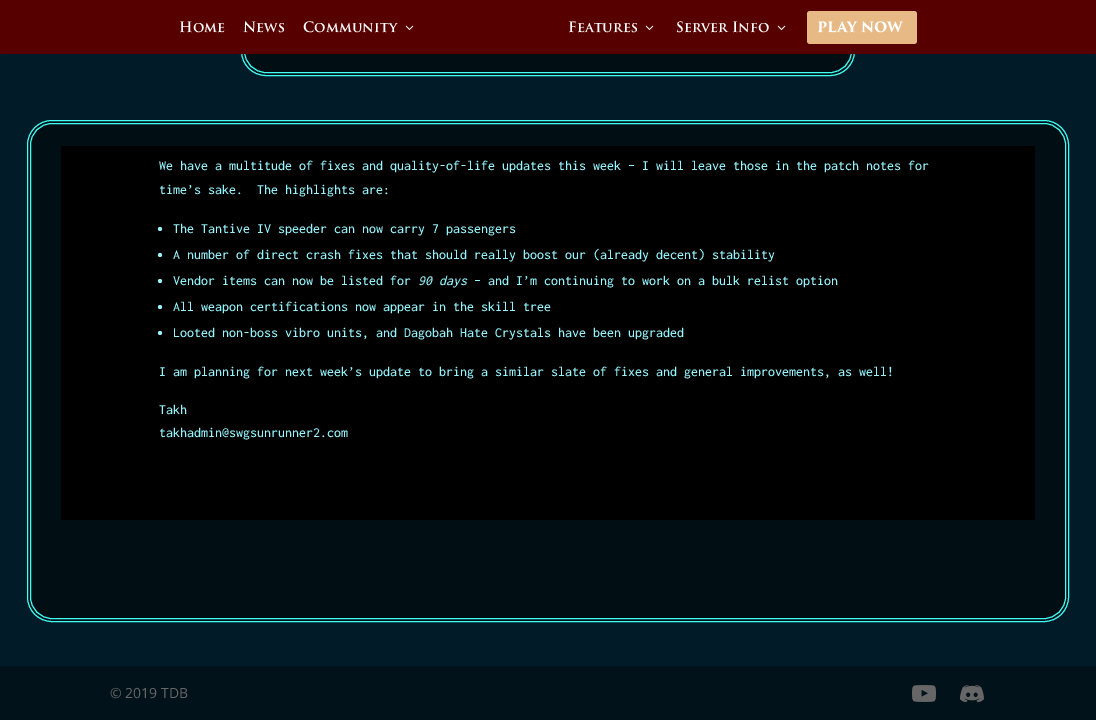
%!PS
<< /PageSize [1096 720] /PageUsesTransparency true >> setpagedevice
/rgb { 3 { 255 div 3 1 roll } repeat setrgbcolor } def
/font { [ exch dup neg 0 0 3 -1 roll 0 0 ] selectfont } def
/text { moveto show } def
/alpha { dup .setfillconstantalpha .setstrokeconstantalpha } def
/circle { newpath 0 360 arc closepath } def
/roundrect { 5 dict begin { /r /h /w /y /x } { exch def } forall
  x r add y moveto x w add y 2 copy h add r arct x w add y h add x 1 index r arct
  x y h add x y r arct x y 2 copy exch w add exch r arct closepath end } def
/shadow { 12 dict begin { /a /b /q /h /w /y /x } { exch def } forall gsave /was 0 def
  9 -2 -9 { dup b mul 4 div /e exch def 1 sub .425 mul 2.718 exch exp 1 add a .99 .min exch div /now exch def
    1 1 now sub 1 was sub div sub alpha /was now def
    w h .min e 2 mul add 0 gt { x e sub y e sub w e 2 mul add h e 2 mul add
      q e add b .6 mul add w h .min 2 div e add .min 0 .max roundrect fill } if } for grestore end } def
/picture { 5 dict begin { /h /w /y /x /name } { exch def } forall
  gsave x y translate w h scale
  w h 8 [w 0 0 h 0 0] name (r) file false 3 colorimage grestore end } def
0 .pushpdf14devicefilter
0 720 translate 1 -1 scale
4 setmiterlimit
2 27 40 rgb
0 0 1096 720 rectfill
1 14 20 rgb
241.5 -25.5 613 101 24.5 roundrect gsave fill grestore
64 255 245 rgb
stroke
244.5 -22.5 607 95 21.5 roundrect stroke
0 0 0 rgb
0 0 1096 54 0 3.5 0.1 shadow
86 0 0 rgb
0 0 1096 54 rectfill
(img_01.rgb) 405 25 9 5 picture
(img_01.rgb) 645 25 9 5 picture
(img_01.rgb) 777 25 9 5 picture
231 185 132 rgb
807 11 110 33 3 roundrect fill
1 14 20 rgb
27.5 120.5 1041 501 24.5 roundrect gsave fill grestore
64 255 245 rgb
stroke
30.5 123.5 1035 495 21.5 roundrect stroke
0 0 0 rgb
61 146 974 374 rectfill
150 244 252 rgb
160 229 2 circle fill
160 255 2 circle fill
160 281 2 circle fill
160 307 2 circle fill
160 333 2 circle fill
1 18 27 rgb
0 666 1096 54 rectfill
(img_02.rgb) 912 685 24 17 picture
(img_03.rgb) 960 685 24 18 picture
/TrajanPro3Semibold-SemiBold 14 font
255 255 255 rgb
(Home) 179 32 text
(News) 243 32 text
(Community) 303 32 text
(Features) 568 32 text
(Server Info) 676 32 text
/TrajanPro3-Bold 14 font
(PLAY NOW) 817 32 text
/Inconsolata-Medium 14 font
150 244 252 rgb
(We have a multitude of fixes and quality-of-life updates this week – I will leave those in the patch notes for) 159 170 text
(time’s sake.  The highlights are:) 159 194 text
(The Tantive IV speeder can now carry 7 passengers) 173 233 text
(A number of direct crash fixes that should really boost our \(already decent\) stability) 173 259 text
(Vendor items can now be listed for) 173 285 text
/Inconsolata-MediumItalic 14 font
(90 days) 418 285 text
/Inconsolata-Medium 14 font
(– and I’m continuing to work on a bulk relist option) 474 285 text
(All weapon certifications now appear in the skill tree) 173 311 text
(Looted non-boss vibro units, and Dagobah Hate Crystals have been upgraded) 173 337 text
(I am planning for next week’s update to bring a similar slate of fixes and general improvements, as well!) 159 376 text
(Takh) 159 414 text
(takhadmin@swgsunrunner2.com) 159 437 text
/OpenSans-Regular 14 font
102 102 102 rgb
(© 2019 TDB) 110 698 text
.poppdf14devicefilter showpage
